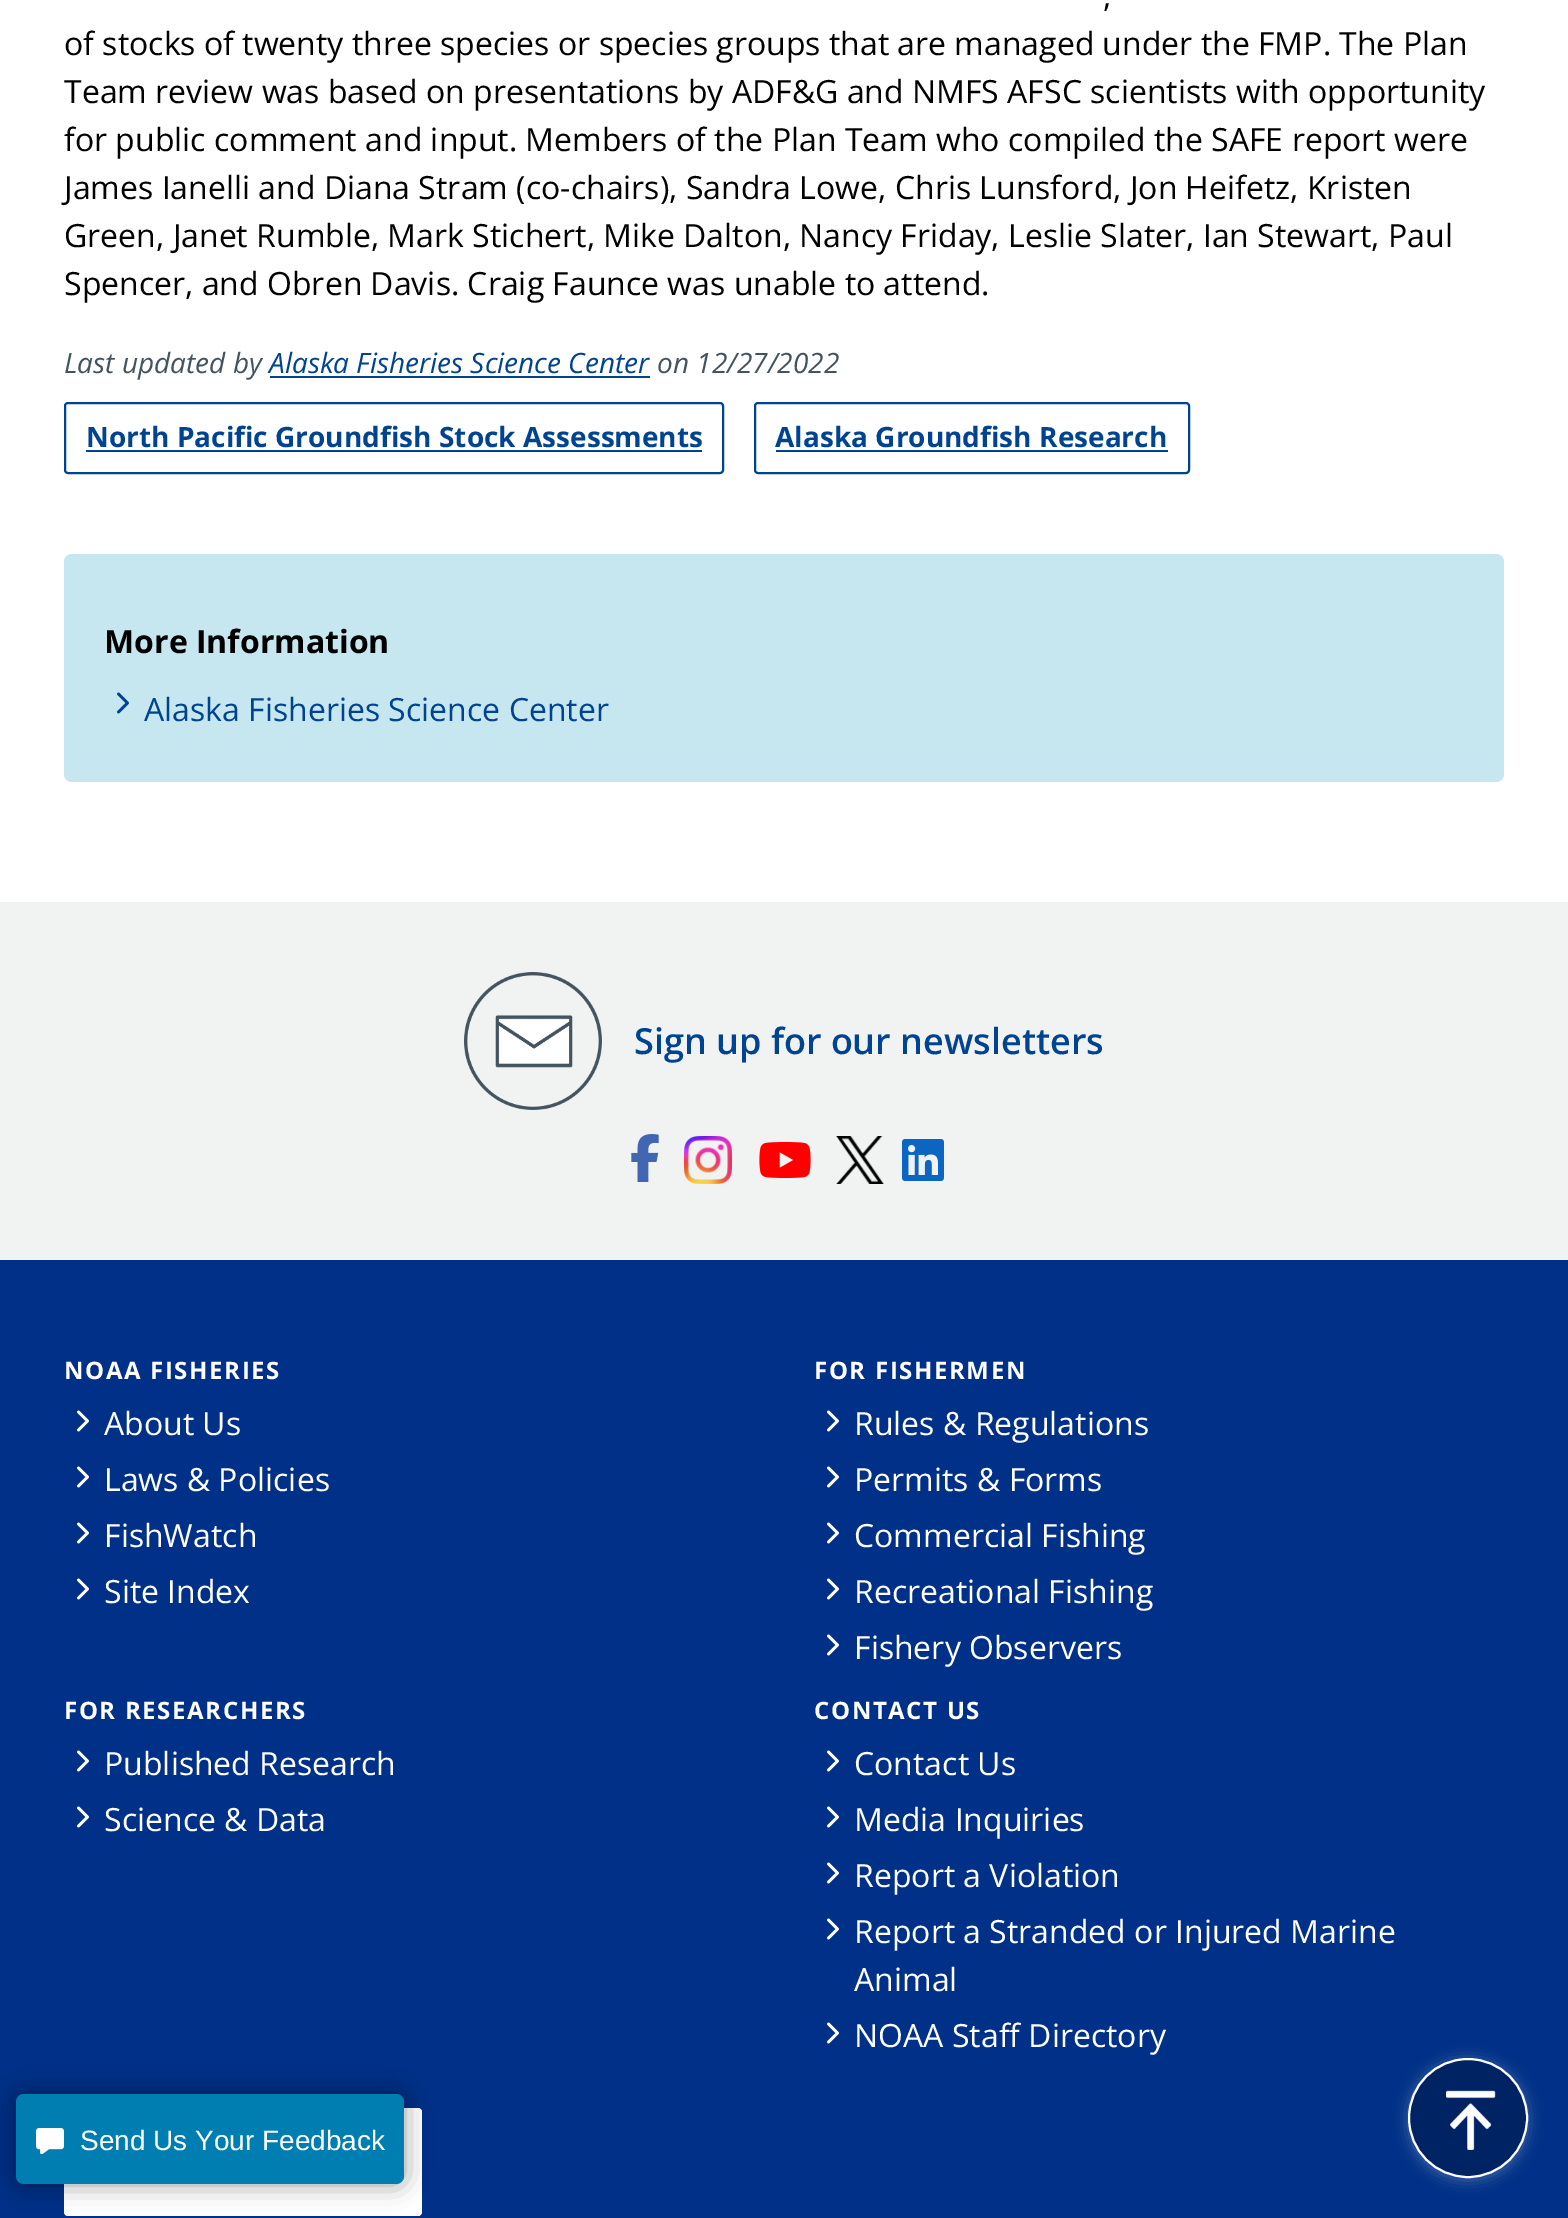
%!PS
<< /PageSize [1568 2218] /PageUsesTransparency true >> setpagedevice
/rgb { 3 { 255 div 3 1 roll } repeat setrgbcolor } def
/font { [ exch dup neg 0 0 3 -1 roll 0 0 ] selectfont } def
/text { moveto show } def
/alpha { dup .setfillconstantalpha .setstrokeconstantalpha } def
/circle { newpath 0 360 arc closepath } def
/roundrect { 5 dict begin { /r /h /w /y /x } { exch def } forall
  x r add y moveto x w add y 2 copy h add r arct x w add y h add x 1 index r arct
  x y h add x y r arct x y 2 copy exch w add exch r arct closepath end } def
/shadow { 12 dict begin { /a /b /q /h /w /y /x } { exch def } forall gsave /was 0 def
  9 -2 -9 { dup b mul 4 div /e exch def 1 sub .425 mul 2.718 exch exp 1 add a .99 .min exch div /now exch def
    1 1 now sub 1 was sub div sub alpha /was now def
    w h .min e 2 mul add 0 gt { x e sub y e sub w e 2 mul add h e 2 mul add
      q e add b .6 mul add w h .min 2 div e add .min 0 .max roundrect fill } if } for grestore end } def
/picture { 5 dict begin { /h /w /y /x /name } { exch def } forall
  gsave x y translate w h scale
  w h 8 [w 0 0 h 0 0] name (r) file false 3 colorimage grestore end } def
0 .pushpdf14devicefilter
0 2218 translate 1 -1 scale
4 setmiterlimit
255 255 255 rgb
0 0 1568 2218 rectfill
0 67 145 rgb
270 376 380 2 rectfill
2 setlinewidth
65 403 658 70 3 roundrect stroke
86 450 616 2 rectfill
755 403 434 70 3 roundrect stroke
776 450 392 2 rectfill
198 230 240 rgb
64 554 1440 228 8 roundrect fill
(img_01.rgb) 117 692 12 22 picture
241 243 243 rgb
0 902 1568 358 rectfill
(img_02.rgb) 464 972 138 138 picture
(img_03.rgb) 631 1134 28 48 picture
(img_04.rgb) 684 1136 48 48 picture
(img_05.rgb) 759 1142 52 36 picture
(img_06.rgb) 836 1136 48 48 picture
(img_07.rgb) 902 1139 42 42 picture
0 48 135 rgb
0 1260 1568 958 rectfill
(img_08.rgb) 77 1410 12 22 picture
(img_08.rgb) 77 1466 12 22 picture
(img_08.rgb) 77 1522 12 22 picture
(img_08.rgb) 77 1578 12 22 picture
(img_08.rgb) 827 1410 12 22 picture
(img_08.rgb) 827 1466 12 22 picture
(img_08.rgb) 827 1522 12 22 picture
(img_08.rgb) 827 1578 12 22 picture
(img_08.rgb) 827 1634 12 22 picture
(img_08.rgb) 77 1750 12 22 picture
(img_08.rgb) 77 1806 12 22 picture
(img_08.rgb) 827 1750 12 22 picture
(img_08.rgb) 827 1806 12 22 picture
(img_08.rgb) 827 1862 12 22 picture
(img_08.rgb) 827 1918 12 22 picture
(img_08.rgb) 827 2022 12 22 picture
255 255 255 rgb
64 2108 358 108 4 roundrect fill
1408 2060 120 120 60 7 0.27 shadow
0 35 100 rgb
1468 2118 59 circle gsave fill grestore
255 255 255 rgb
stroke
(img_09.rgb) 1446 2090 50 60 picture
0 0 0 rgb
16 2094 388 90 8 12.5 0.4 shadow
0 126 178 rgb
16 2094 388 90 8 roundrect fill
(img_10.rgb) 36 2128 28 26 picture
/OpenSans-Regular 32 font
0 0 0 rgb
(,) 1103 7 text
(of stocks of twenty three species or species groups that are managed under the FMP. The Plan) 64 55 text
(Team review was based on presentations by ADF&G and NMFS AFSC scientists with opportunity) 64 103 text
(for public comment and input. Members of the Plan Team who compiled the SAFE report were) 64 151 text
(James Ianelli and Diana Stram \(co-chairs\), Sandra Lowe, Chris Lunsford, Jon Heifetz, Kristen) 64 199 text
(Green, Janet Rumble, Mark Stichert, Mike Dalton, Nancy Friday, Leslie Slater, Ian Stewart, Paul) 64 247 text
(Spencer, and Obren Davis. Craig Faunce was unable to attend.) 64 295 text
/OpenSans-Italic 28 font
68 84 95 rgb
(Last updated by) 64 373 text
0 67 145 rgb
(Alaska Fisheries Science Center) 269 373 text
68 84 95 rgb
(on 12/27/2022) 657 373 text
/OpenSans-Bold 28 font
0 67 145 rgb
(North Pacific Groundfish Stock Assessments) 86 447 text
(Alaska Groundfish Research) 775 447 text
/OpenSans-Bold 32 font
0 0 0 rgb
(More Information) 104 653 text
/OpenSans-Regular 32 font
0 67 145 rgb
(Alaska Fisheries Science Center) 144 721 text
/OpenSans-SemiBold 36 font
(Sign up for our newsletters) 634 1054 text
/OpenSans-Bold 24 font
255 255 255 rgb
64 1379 moveto 1.6 0 (NOAA FISHERIES) ashow
/OpenSans-Regular 32 font
(About Us) 104 1435 text
(Laws & Policies) 104 1491 text
(FishWatch) 104 1547 text
(Site Index) 104 1603 text
/OpenSans-Bold 24 font
814 1379 moveto 1.6 0 (FOR FISHERMEN) ashow
/OpenSans-Regular 32 font
(Rules & Regulations) 854 1435 text
(Permits & Forms) 854 1491 text
(Commercial Fishing) 854 1547 text
(Recreational Fishing) 854 1603 text
(Fishery Observers) 854 1659 text
/OpenSans-Bold 24 font
64 1719 moveto 1.6 0 (FOR RESEARCHERS) ashow
/OpenSans-Regular 32 font
(Published Research) 104 1775 text
(Science & Data) 104 1831 text
/OpenSans-Bold 24 font
814 1719 moveto 1.6 0 (CONTACT US) ashow
/OpenSans-Regular 32 font
(Contact Us) 854 1775 text
(Media Inquiries) 854 1831 text
(Report a Violation) 854 1887 text
(Report a Stranded or Injured Marine) 854 1943 text
(Animal) 854 1991 text
(NOAA Staff Directory) 854 2047 text
/LiberationSans-Regular 28 font
(Send Us Your Feedback) 80 2150 text
.poppdf14devicefilter showpage
